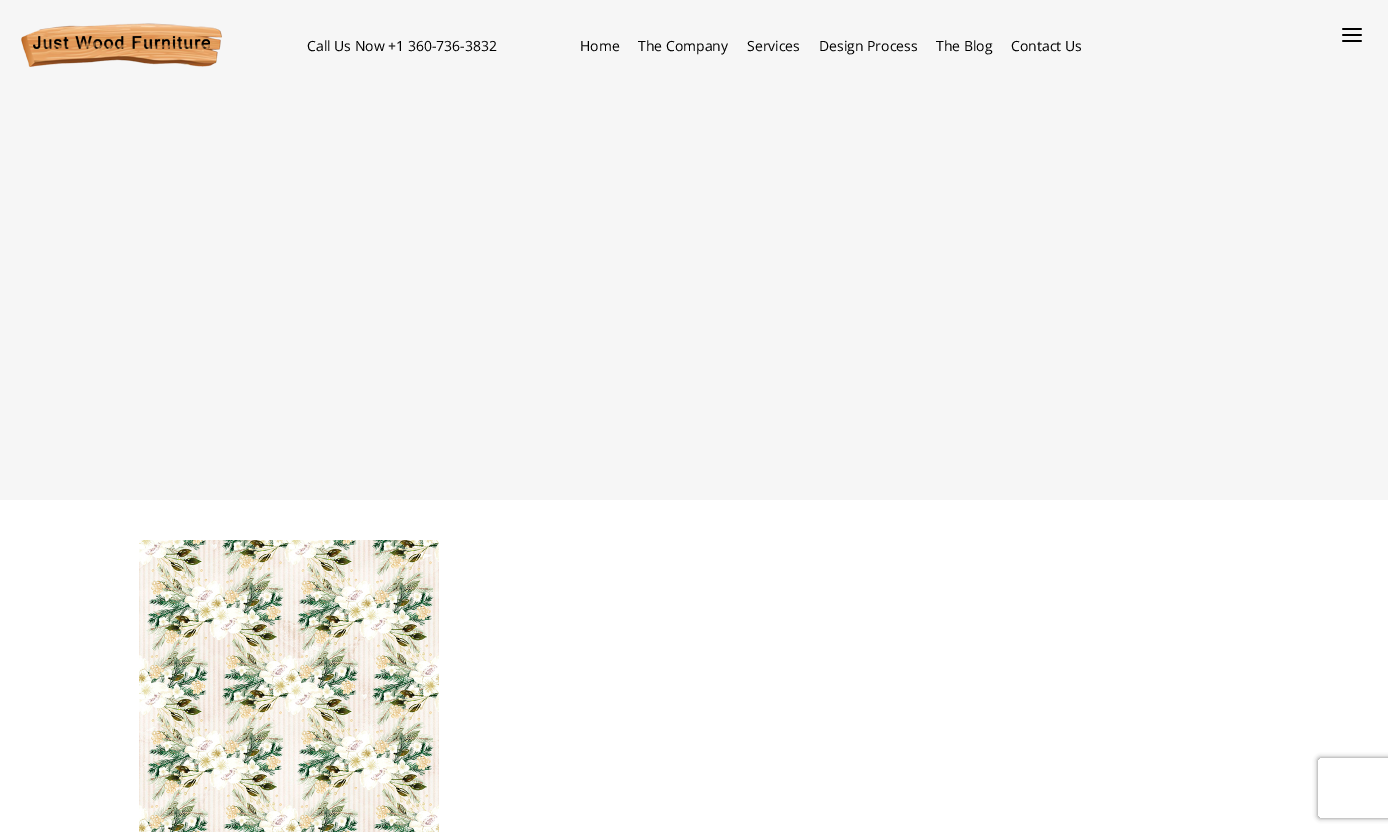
%!PS
<< /PageSize [1388 832] /PageUsesTransparency true >> setpagedevice
/rgb { 3 { 255 div 3 1 roll } repeat setrgbcolor } def
/font { [ exch dup neg 0 0 3 -1 roll 0 0 ] selectfont } def
/text { moveto show } def
/alpha { dup .setfillconstantalpha .setstrokeconstantalpha } def
/roundrect { 5 dict begin { /r /h /w /y /x } { exch def } forall
  x r add y moveto x w add y 2 copy h add r arct x w add y h add x 1 index r arct
  x y h add x y r arct x y 2 copy exch w add exch r arct closepath end } def
/shadow { 12 dict begin { /a /b /q /h /w /y /x } { exch def } forall gsave /was 0 def
  9 -2 -9 { dup b mul 4 div /e exch def 1 sub .425 mul 2.718 exch exp 1 add a .99 .min exch div /now exch def
    1 1 now sub 1 was sub div sub alpha /was now def
    w h .min e 2 mul add 0 gt { x e sub y e sub w e 2 mul add h e 2 mul add
      q e add b .6 mul add w h .min 2 div e add .min 0 .max roundrect fill } if } for grestore end } def
/picture { 5 dict begin { /h /w /y /x /name } { exch def } forall
  gsave x y translate w h scale
  w h 8 [w 0 0 h 0 0] name (r) file false 3 colorimage grestore end } def
0 .pushpdf14devicefilter
0 832 translate 1 -1 scale
4 setmiterlimit
255 255 255 rgb
0 0 1388 832 rectfill
246 246 246 rgb
0 0 1388 500 rectfill
(img_01.rgb) 1342 28 20 14 picture
(img_02.rgb) 21 23 201 44 picture
(img_03.rgb) 139 540 300 292 picture
gsave
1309 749 moveto 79 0 rlineto 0 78 rlineto -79 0 rlineto closepath 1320 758 moveto 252 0 rlineto 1 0 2 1 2 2 rcurveto 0 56 rlineto 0 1 -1 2 -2 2 rcurveto -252 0 rlineto -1 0 -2 -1 -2 -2 rcurveto 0 -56 rlineto 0 -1 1 -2 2 -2 rcurveto closepath eoclip newpath
128 128 128 rgb
1318 758 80 60 2 2.5 1 shadow
grestore
/OpenSans-Regular 14 font
0 0 0 rgb
(Call Us Now +1 360-736-3832) 307 51 text
(Home) 580 51 text
(The Company) 638 51 text
(Services) 747 51 text
(Design Process) 819 51 text
(The Blog) 936 51 text
(Contact Us) 1011 51 text
.poppdf14devicefilter showpage
